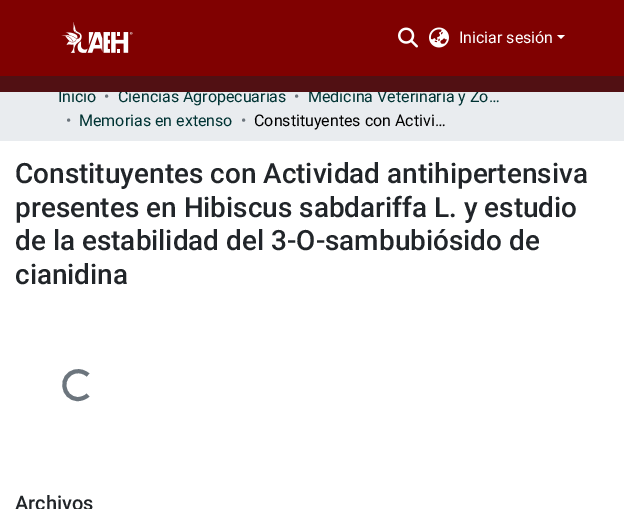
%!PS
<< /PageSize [624 509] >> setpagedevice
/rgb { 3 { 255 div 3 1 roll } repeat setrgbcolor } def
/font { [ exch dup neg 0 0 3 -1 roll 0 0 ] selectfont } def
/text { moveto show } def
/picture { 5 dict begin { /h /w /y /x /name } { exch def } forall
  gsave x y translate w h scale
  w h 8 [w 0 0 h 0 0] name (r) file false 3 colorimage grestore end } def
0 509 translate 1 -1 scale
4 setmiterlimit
255 255 255 rgb
0 0 624 509 rectfill
128 1 1 rgb
0 0 624 76 rectfill
(img_01.rgb) 61 22 72 31 picture
(img_02.rgb) 398 27 20 21 picture
(img_03.rgb) 429 27 20 21 picture
255 255 255 rgb
557 35 moveto 8 0 rlineto -4 4 rlineto closepath fill
233 236 239 rgb
0 92 624 49 rectfill
108 117 125 rgb
4 setlinewidth
88 395 moveto -2.5 2.5 -6.5 4 -10 4 rcurveto -16.5 0 -19 -24.5 -2.5 -27.5 rcurveto 4.5 -1 9 0.5 12.5 3.5 rcurveto stroke
/Roboto-Regular 16 font
255 255 255 rgb
(Iniciar sesión) 459 43 text
0 51 51 rgb
(Inicio) 58 102 text
108 117 125 rgb
(•) 104 102 text
0 51 51 rgb
(Ciencias Agropecuarias) 118 102 text
108 117 125 rgb
(•) 294 102 text
0 51 51 rgb
(Medicina Veterinaria y Zo…) 308 102 text
81 16 19 rgb
0 76 624 16 rectfill
108 117 125 rgb
(•) 66 126 text
0 51 51 rgb
(Memorias en extenso) 79 126 text
108 117 125 rgb
(•) 241 126 text
0 0 0 rgb
(Constituyentes con Activi…) 254 126 text
/Roboto-Medium 27.95 font
33 37 41 rgb
(Constituyentes con Actividad antihipertensiva) 15 183 text
(presentes en Hibiscus sabdariffa L. y estudio) 15 217 text
(de la estabilidad del 3-O-sambubiósido de) 15 250 text
(cianidina) 15 284 text
/Roboto-Medium 20 font
(Archivos) 15 510 text
showpage
